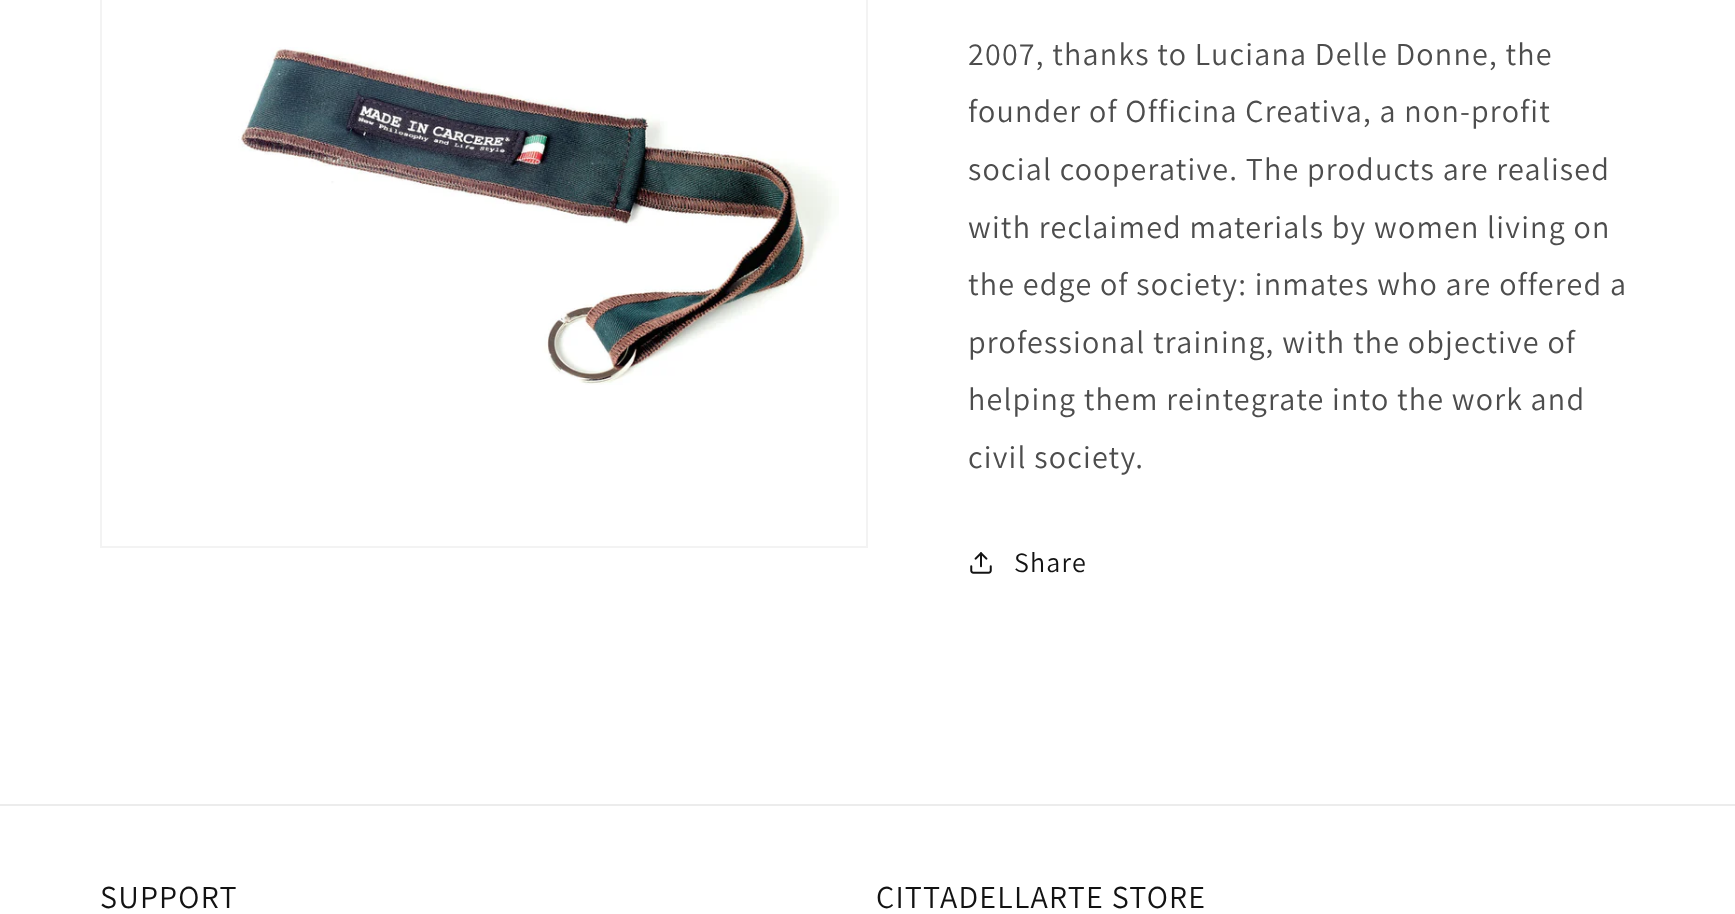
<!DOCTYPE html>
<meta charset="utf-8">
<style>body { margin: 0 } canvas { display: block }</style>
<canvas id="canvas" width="1735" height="914"></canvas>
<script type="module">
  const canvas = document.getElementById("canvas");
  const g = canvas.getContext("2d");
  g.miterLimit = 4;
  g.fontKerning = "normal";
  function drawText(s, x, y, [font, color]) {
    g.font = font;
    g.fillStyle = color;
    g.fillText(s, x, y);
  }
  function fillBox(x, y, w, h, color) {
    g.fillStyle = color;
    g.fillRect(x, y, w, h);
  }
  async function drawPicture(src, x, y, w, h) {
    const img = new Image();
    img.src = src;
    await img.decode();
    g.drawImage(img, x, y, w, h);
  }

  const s1 = ["32px Assistant", "#4D4D4D"];
  const s2 = ["28px Assistant", "#121212"];
  const s3 = ["32px Assistant", "#121212"];

  fillBox(0, 0, 1735, 914, "#FFFFFF");
  g.strokeStyle = "#F3F3F3";
  g.lineWidth = 2;
  g.strokeRect(101, -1, 766, 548);
  await drawPicture("pic1.png", 238, 47, 601, 338);
  g.letterSpacing = "1.2px";
  drawText("2007, thanks to Luciana Delle Donne, the", 968, 65, s1);
  drawText("founder of Officina Creativa, a non-profit", 968, 122, s1);
  drawText("social cooperative. The products are realised", 968, 180, s1);
  drawText("with reclaimed materials by women living on", 968, 238, s1);
  drawText("the edge of society: inmates who are offered a", 968, 295, s1);
  drawText("professional training, with the objective of", 968, 353, s1);
  drawText("helping them reintegrate into the work and", 968, 410, s1);
  drawText("civil society.", 968, 468, s1);
  await drawPicture("pic2.png", 970, 552, 22, 22);
  drawText("Share", 1014, 572, s2);
  fillBox(0, 804, 1735, 2, "#ECECEC");
  drawText("SUPPORT", 100, 908, s3);
  drawText("CITTADELLARTE STORE", 876, 908, s3);
</script>
